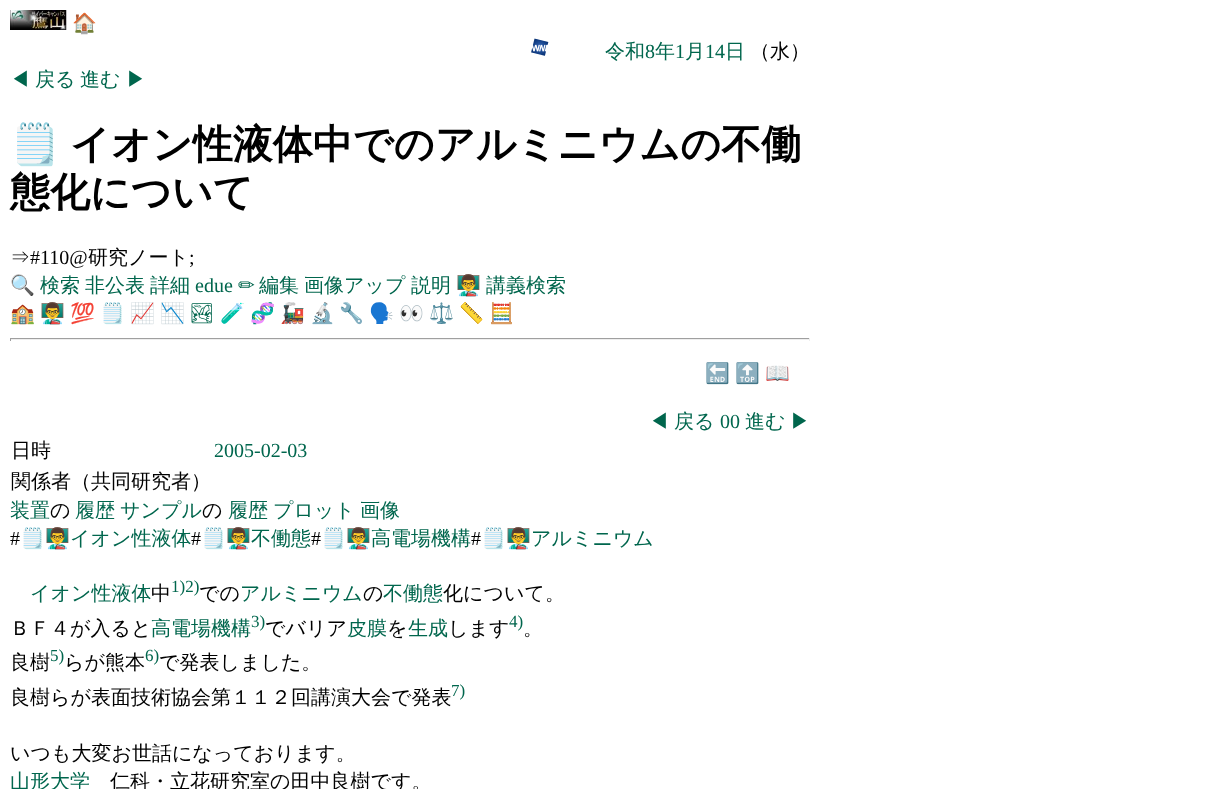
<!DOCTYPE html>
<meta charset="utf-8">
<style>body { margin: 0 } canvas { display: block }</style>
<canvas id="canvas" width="1229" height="789"></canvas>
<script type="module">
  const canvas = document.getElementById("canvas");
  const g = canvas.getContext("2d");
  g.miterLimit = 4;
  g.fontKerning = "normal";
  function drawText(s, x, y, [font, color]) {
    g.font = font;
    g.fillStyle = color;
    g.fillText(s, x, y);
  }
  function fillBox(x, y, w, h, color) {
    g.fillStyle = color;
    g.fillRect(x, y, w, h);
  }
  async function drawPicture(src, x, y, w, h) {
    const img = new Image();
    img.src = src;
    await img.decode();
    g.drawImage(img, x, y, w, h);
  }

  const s1 = ["20px Noto Color Emoji", "#00664D"];
  const s2 = ["500 20px WenQuanYi Zen Hei", "#00664D"];
  const s3 = ["20px Liberation Serif", "#00664D"];
  const s4 = ["500 20px WenQuanYi Zen Hei", "#000000"];
  const s5 = ["bold 40px Noto Color Emoji", "#00664D"];
  const s6 = ["bold 40px WenQuanYi Zen Hei", "#000000"];
  const s7 = ["20px Liberation Serif", "#000000"];
  const s8 = ["20px DejaVu Sans", "#00664D"];
  const s9 = ["20px Noto Emoji", "#00664D"];
  const s10 = ["17px Liberation Serif", "#00664D"];

  fillBox(0, 0, 1229, 789, "#FFFFFF");
  await drawPicture("pic1.png", 10, 10, 57, 20);
  drawText("🏠", 72, 30, s1);
  await drawPicture("pic2.png", 531, 38, 18, 18);
  drawText("令和", 605, 58, s2);
  drawText("8", 645, 58, s3);
  drawText("年", 655, 58, s2);
  drawText("1", 675, 58, s3);
  drawText("月", 685, 58, s2);
  drawText("14", 705, 58, s3);
  drawText("日", 725, 58, s2);
  drawText("（水）", 750, 58, s4);
  drawText("◀", 10, 86, s2);
  drawText("戻る", 35, 86, s2);
  drawText("進む", 80, 86, s2);
  drawText("▶", 126, 86, s2);
  drawText("🗒️", 10, 158, s5);
  drawText("イオン性液体中でのアルミニウムの不働", 70, 158, s6);
  drawText("態化について", 10, 206, s6);
  drawText("⇒", 10, 264, s4);
  drawText("#110@", 30, 264, s7);
  drawText("研究ノート", 88, 264, s4);
  drawText(";", 189, 264, s7);
  drawText("🔍", 10, 292, s1);
  drawText("検索", 40, 292, s2);
  drawText("非公表", 85, 292, s2);
  drawText("詳細", 150, 292, s2);
  drawText("edue", 195, 292, s3);
  drawText("✏", 238, 292, s8);
  drawText("編集", 259, 292, s2);
  drawText("画像アップ", 304, 292, s2);
  drawText("説明", 411, 292, s2);
  drawText("👨‍🏫", 456, 292, s1);
  drawText("講義検索", 486, 292, s2);
  drawText("🏫", 10, 320, s1);
  drawText("👨‍🏫", 40, 320, s1);
  drawText("💯", 70, 320, s1);
  drawText("🗒️", 100, 320, s1);
  drawText("📈", 130, 320, s1);
  drawText("📉", 160, 320, s1);
  drawText("🏞", 189, 320, s9);
  drawText("🧪", 220, 320, s1);
  drawText("🧬", 250, 320, s1);
  drawText("🚂", 280, 320, s1);
  drawText("🔬", 310, 320, s1);
  drawText("🔧", 339, 320, s1);
  drawText("🗣️", 369, 320, s1);
  drawText("👀", 399, 320, s1);
  drawText("⚖️", 429, 320, s1);
  drawText("📏", 459, 320, s1);
  drawText("🧮", 489, 320, s1);
  fillBox(10, 338, 800, 1, "#9F9F9F");
  fillBox(809, 338, 1, 3, "#EEEEEE");
  fillBox(10, 339, 800, 1, "#EEEEEE");
  fillBox(10, 338, 1, 3, "#9F9F9F");
  drawText("🔚", 705, 380, s1);
  drawText("🔝", 735, 380, s1);
  drawText("📖", 765, 380, s1);
  drawText("◀", 649, 428, s2);
  drawText("戻る", 674, 428, s2);
  drawText("00", 720, 428, s3);
  drawText("進む", 745, 428, s2);
  drawText("▶", 790, 428, s2);
  drawText("日時", 11, 457, s4);
  drawText("2005-02-03", 214, 457, s3);
  drawText("関係者（共同研究者）", 11, 488, s4);
  drawText("装置", 10, 517, s2);
  drawText("の", 50, 517, s4);
  drawText("履歴", 75, 517, s2);
  drawText("サンプル", 120, 517, s2);
  drawText("の", 202, 517, s4);
  drawText("履歴", 228, 517, s2);
  drawText("プロット", 273, 517, s2);
  drawText("画像", 360, 517, s2);
  drawText("#", 10, 545, s7);
  drawText("🗒️👨‍🏫", 20, 545, s1);
  drawText("イオン性液体", 70, 545, s2);
  drawText("#", 191, 545, s7);
  drawText("🗒️👨‍🏫", 201, 545, s1);
  drawText("不働態", 251, 545, s2);
  drawText("#", 311, 545, s7);
  drawText("🗒️👨‍🏫", 321, 545, s1);
  drawText("高電場機構", 371, 545, s2);
  drawText("#", 471, 545, s7);
  drawText("🗒️👨‍🏫", 481, 545, s1);
  drawText("アルミニウム", 531, 545, s2);
  drawText("イオン性液体", 30, 600, s2);
  drawText("中", 151, 600, s4);
  drawText("1)2)", 171, 592, s10);
  drawText("での", 199, 600, s4);
  drawText("アルミニウム", 240, 600, s2);
  drawText("の", 363, 600, s4);
  drawText("不働態", 383, 600, s2);
  drawText("化について。", 443, 600, s4);
  drawText("ＢＦ４が入ると", 10, 635, s4);
  drawText("高電場機構", 151, 635, s2);
  drawText("3)", 251, 627, s10);
  drawText("でバリア", 265, 635, s4);
  drawText("皮膜", 347, 635, s2);
  drawText("を", 387, 635, s4);
  drawText("生成", 408, 635, s2);
  drawText("します", 448, 635, s4);
  drawText("4)", 509, 627, s10);
  drawText("。", 523, 635, s4);
  drawText("良樹", 10, 669, s4);
  drawText("5)", 50, 661, s10);
  drawText("らが熊本", 64, 669, s4);
  drawText("6)", 145, 661, s10);
  drawText("で発表しました。", 159, 669, s4);
  drawText("良樹らが表面技術協会第１１２回講演大会で発表", 10, 704, s4);
  drawText("7)", 451, 696, s10);
  drawText("いつも大変お世話になっております。", 10, 760, s4);
  drawText("山形大学", 10, 788, s2);
  drawText("仁科・立花研究室の田中良樹です。", 110, 788, s4);
</script>
